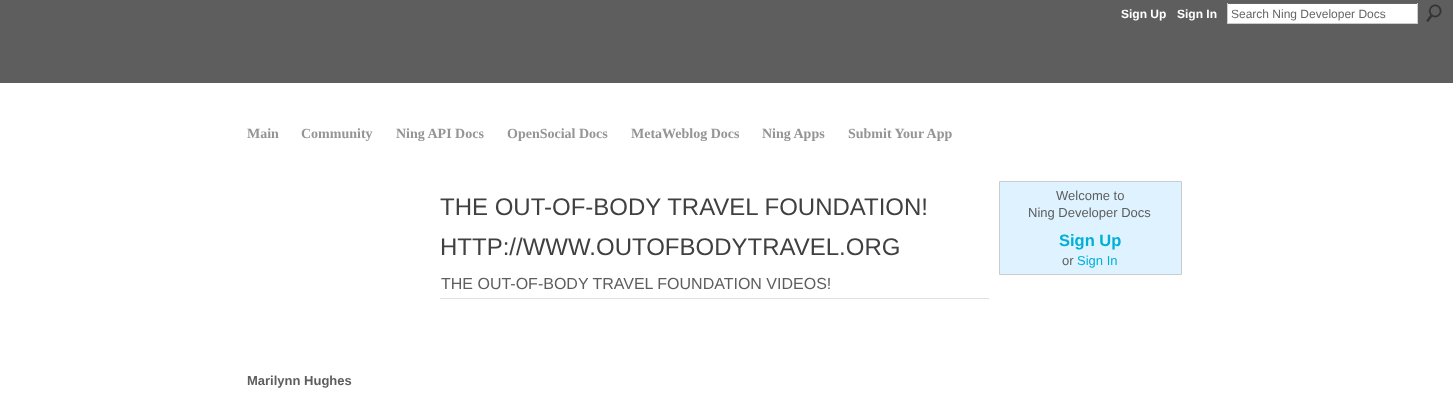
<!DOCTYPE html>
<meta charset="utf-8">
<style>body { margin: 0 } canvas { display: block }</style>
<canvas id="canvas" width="1453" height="395"></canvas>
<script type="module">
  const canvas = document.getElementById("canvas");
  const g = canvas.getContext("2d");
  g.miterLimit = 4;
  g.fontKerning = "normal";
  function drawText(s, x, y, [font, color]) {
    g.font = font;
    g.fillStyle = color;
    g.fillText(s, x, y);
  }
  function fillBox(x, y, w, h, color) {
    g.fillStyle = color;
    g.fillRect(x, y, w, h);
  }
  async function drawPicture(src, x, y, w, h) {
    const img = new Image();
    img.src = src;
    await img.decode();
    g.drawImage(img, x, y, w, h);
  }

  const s1 = ["bold 12px Liberation Sans", "#FFFFFF"];
  const s2 = ["12px Liberation Sans", "#666666"];
  const s3 = ["bold 14px Liberation Serif", "#959595"];
  const s4 = ["24px Liberation Sans", "#403F41"];
  const s5 = ["16px Liberation Sans", "#5E5E5E"];
  const s6 = ["bold 13px Liberation Sans", "#5E5E5E"];
  const s7 = ["13px Liberation Sans", "#5E5E5E"];
  const s8 = ["bold 16.5px Liberation Sans", "#00B0D8"];
  const s9 = ["13px Liberation Sans", "#00B0D8"];

  fillBox(0, 0, 1453, 395, "#FFFFFF");
  fillBox(0, 0, 1453, 83, "#5E5E5E");
  drawText("Sign Up", 1121, 18, s1);
  drawText("Sign In", 1177, 18, s1);
  fillBox(1228, 4, 189, 19, "#FFFFFF");
  fillBox(1227, 3, 191, 1, "#666666");
  fillBox(1417, 3, 1, 21, "#CCCCCC");
  fillBox(1227, 23, 191, 1, "#CCCCCC");
  fillBox(1227, 3, 1, 21, "#CCCCCC");
  drawText("Search Ning Developer Docs", 1231, 18, s2);
  await drawPicture("pic1.png", 1426, 4, 16, 18);
  drawText("Main", 247, 138, s3);
  drawText("Community", 301, 138, s3);
  drawText("Ning API Docs", 396, 138, s3);
  drawText("OpenSocial Docs", 507, 138, s3);
  drawText("MetaWeblog Docs", 631, 138, s3);
  drawText("Ning Apps", 762, 138, s3);
  drawText("Submit Your App", 848, 138, s3);
  drawText("THE OUT-OF-BODY TRAVEL FOUNDATION!", 440, 215, s4);
  drawText("HTTP://WWW.OUTOFBODYTRAVEL.ORG", 440, 255, s4);
  fillBox(440, 298, 549, 1, "#E1E1E1");
  drawText("THE OUT-OF-BODY TRAVEL FOUNDATION VIDEOS!", 441, 289, s5);
  drawText("Marilynn Hughes", 247, 385, s6);
  g.fillStyle = "#DFF2FF";
  g.beginPath();
  g.rect(999.5, 181.5, 182, 93);
  g.fill();
  g.strokeStyle = "#CCCCCC";
  g.stroke();
  drawText("Welcome to", 1056, 200, s7);
  drawText("Ning Developer Docs", 1028, 217, s7);
  drawText("Sign Up", 1059, 246, s8);
  drawText("or", 1062, 265, s7);
  drawText("Sign In", 1077, 265, s9);
</script>
